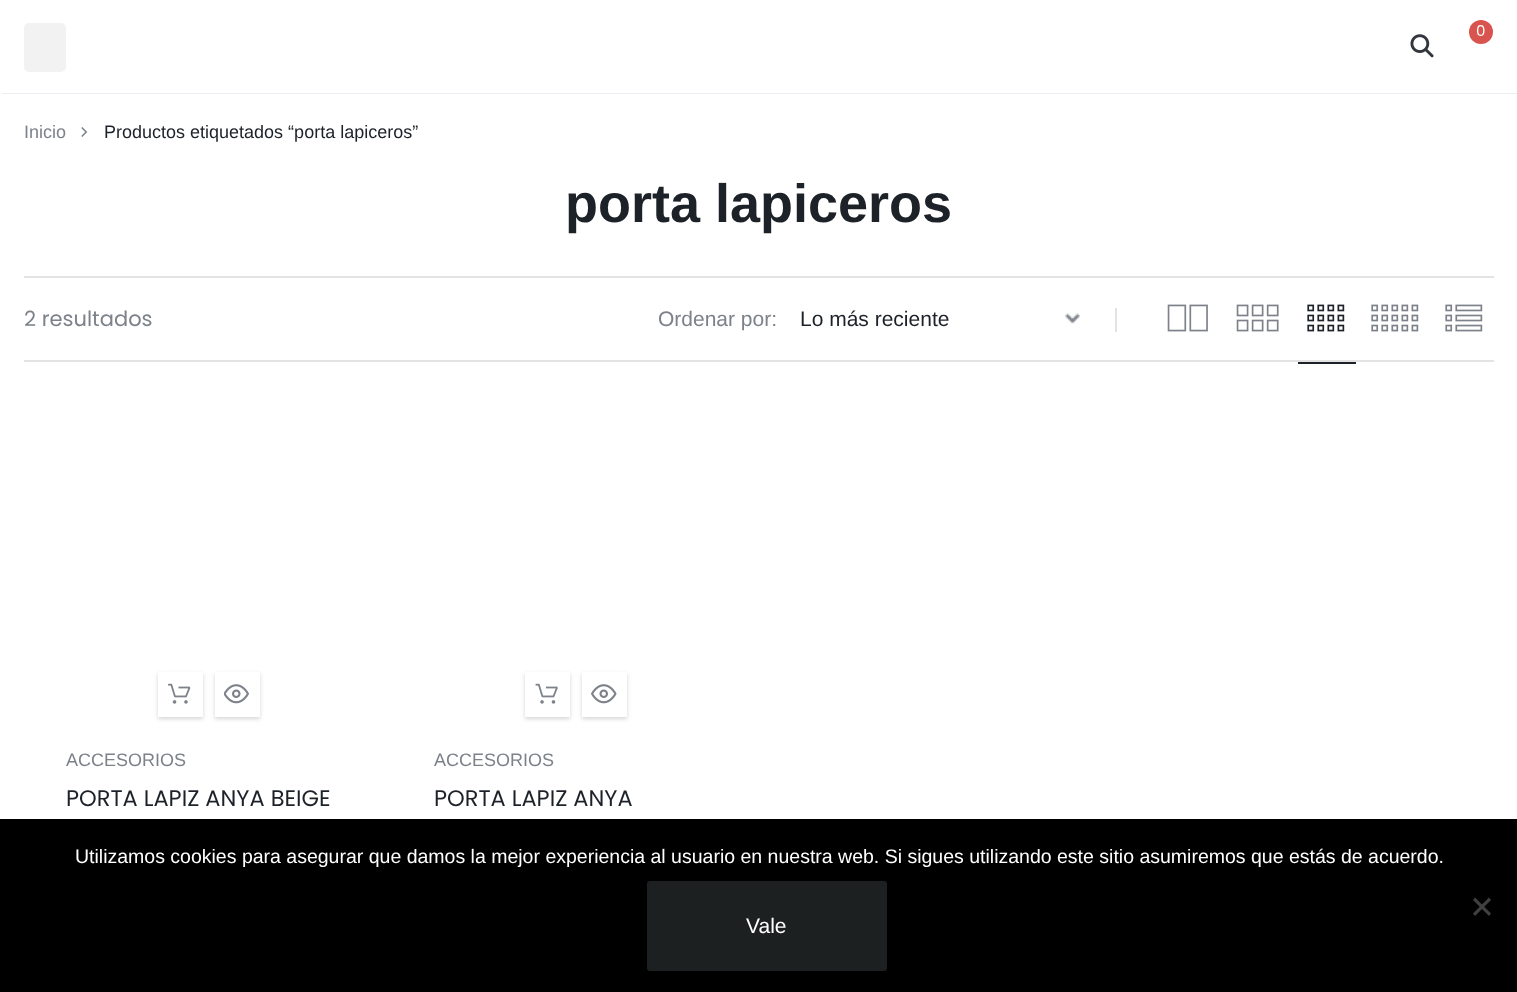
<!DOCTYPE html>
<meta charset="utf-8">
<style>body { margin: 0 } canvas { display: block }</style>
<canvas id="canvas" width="1517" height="992"></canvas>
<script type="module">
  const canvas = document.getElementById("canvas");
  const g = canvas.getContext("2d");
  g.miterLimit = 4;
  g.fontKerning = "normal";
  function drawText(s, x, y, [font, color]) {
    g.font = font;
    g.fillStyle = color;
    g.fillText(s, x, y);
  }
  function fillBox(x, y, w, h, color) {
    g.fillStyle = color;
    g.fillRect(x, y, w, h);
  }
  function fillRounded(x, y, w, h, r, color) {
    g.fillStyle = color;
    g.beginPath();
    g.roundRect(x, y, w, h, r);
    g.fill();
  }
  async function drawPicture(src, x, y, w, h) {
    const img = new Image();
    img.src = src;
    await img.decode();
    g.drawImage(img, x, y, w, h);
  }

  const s1 = ["15px Poppins", "#FFFFFF"];
  const s2 = ["18px Liberation Sans", "#7D828A"];
  const s3 = ["18px Liberation Sans", "#1D2128"];
  const s4 = ["bold 54px Liberation Sans", "#1D2128"];
  const s5 = ["21px Poppins", "#7D828A"];
  const s6 = ["21px Liberation Sans", "#7D828A"];
  const s7 = ["21px Liberation Sans", "#1D2128"];
  const s8 = ["22.5px Poppins", "#1D2128"];
  const s9 = ["19.5px Liberation Sans", "#FFFFFF"];
  const s10 = ["21px Liberation Sans", "#FFFFFF"];

  fillBox(0, 0, 1517, 992, "#FFFFFF");
  fillRounded(24, 23, 42, 49, 5, "#F2F2F2");
  g.fillStyle = "#D9534F";
  g.beginPath();
  g.arc(1481, 32, 12, 0, Math.PI * 2);
  g.fill();
  drawText("0", 1476, 36, s1);
  await drawPicture("pic1.png", 1410, 34, 24, 24);
  fillBox(2, 93, 1515, 1, "#EBEFF3");
  drawText("Inicio", 24, 138, s2);
  await drawPicture("pic2.png", 81, 127, 7, 10);
  drawText("Productos etiquetados “porta lapiceros”", 104, 138, s3);
  drawText("porta lapiceros", 565, 222, s4);
  fillBox(24, 276, 1470, 2, "#E3E3E3");
  fillBox(24, 360, 1470, 2, "#E3E3E3");
  drawText("2 resultados", 24, 326, s5);
  drawText("Ordenar por:", 658, 326, s6);
  await drawPicture("pic3.png", 1065, 313, 15, 11);
  drawText("Lo más reciente", 800, 326, s7);
  fillBox(1115, 308, 2, 24, "#E3E3E3");
  await drawPicture("pic4.png", 1167, 304, 41, 28);
  await drawPicture("pic5.png", 1236, 304, 43, 28);
  await drawPicture("pic6.png", 1307, 304, 38, 28);
  fillBox(1298, 362, 58, 2, "#1D2128");
  await drawPicture("pic7.png", 1371, 304, 48, 28);
  await drawPicture("pic8.png", 1445, 304, 38, 28);
  g.fillStyle = "rgba(0, 0, 0, 0.16)";
  g.filter = "blur(2px)";
  g.beginPath();
  g.rect(158, 674, 45, 45);
  g.fill();
  g.filter = "none";
  fillBox(158, 672, 45, 45, "#FFFFFF");
  await drawPicture("pic9.png", 168, 683, 23, 21);
  g.fillStyle = "rgba(0, 0, 0, 0.16)";
  g.filter = "blur(2px)";
  g.beginPath();
  g.rect(215, 674, 45, 45);
  g.fill();
  g.filter = "none";
  fillBox(215, 672, 45, 45, "#FFFFFF");
  await drawPicture("pic10.png", 224, 684, 25, 20);
  drawText("ACCESORIOS", 66, 766, s2);
  drawText("PORTA LAPIZ ANYA BEIGE", 66, 806, s8);
  g.save();
  g.beginPath();
  g.moveTo(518, 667);
  g.lineTo(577, 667);
  g.lineTo(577, 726);
  g.lineTo(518, 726);
  g.closePath();
  g.moveTo(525, 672);
  g.lineTo(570, 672);
  g.lineTo(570, 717);
  g.lineTo(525, 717);
  g.closePath();
  g.clip("evenodd");
  g.fillStyle = "rgba(0, 0, 0, 0.16)";
  g.filter = "blur(2px)";
  g.beginPath();
  g.rect(525, 674, 45, 45);
  g.fill();
  g.filter = "none";
  g.restore();
  await drawPicture("pic11.png", 535, 683, 23, 21);
  g.save();
  g.beginPath();
  g.moveTo(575, 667);
  g.lineTo(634, 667);
  g.lineTo(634, 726);
  g.lineTo(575, 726);
  g.closePath();
  g.moveTo(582, 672);
  g.lineTo(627, 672);
  g.lineTo(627, 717);
  g.lineTo(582, 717);
  g.closePath();
  g.clip("evenodd");
  g.fillStyle = "rgba(0, 0, 0, 0.16)";
  g.filter = "blur(2px)";
  g.beginPath();
  g.rect(582, 674, 45, 45);
  g.fill();
  g.filter = "none";
  g.restore();
  await drawPicture("pic12.png", 591, 684, 26, 20);
  drawText("ACCESORIOS", 434, 766, s2);
  drawText("PORTA LAPIZ ANYA", 434, 806, s8);
  fillBox(0, 819, 1517, 173, "#000000");
  drawText("Utilizamos cookies para asegurar que damos la mejor experiencia al usuario en nuestra web. Si sigues utilizando este sitio asumiremos que estás de acuerdo.", 75, 863, s9);
  g.fillStyle = "#404040";
  g.beginPath();
  g.moveTo(1489, 897.5);
  g.lineTo(1491, 900);
  g.lineTo(1475, 916);
  g.lineTo(1473, 913.5);
  g.closePath();
  g.fill();
  g.beginPath();
  g.moveTo(1473, 900);
  g.lineTo(1475, 897.5);
  g.lineTo(1491, 913.5);
  g.lineTo(1489, 916);
  g.closePath();
  g.fill();
  fillRounded(647, 881, 240, 90, 3, "#1D2021");
  drawText("Vale", 746, 933, s10);
</script>
